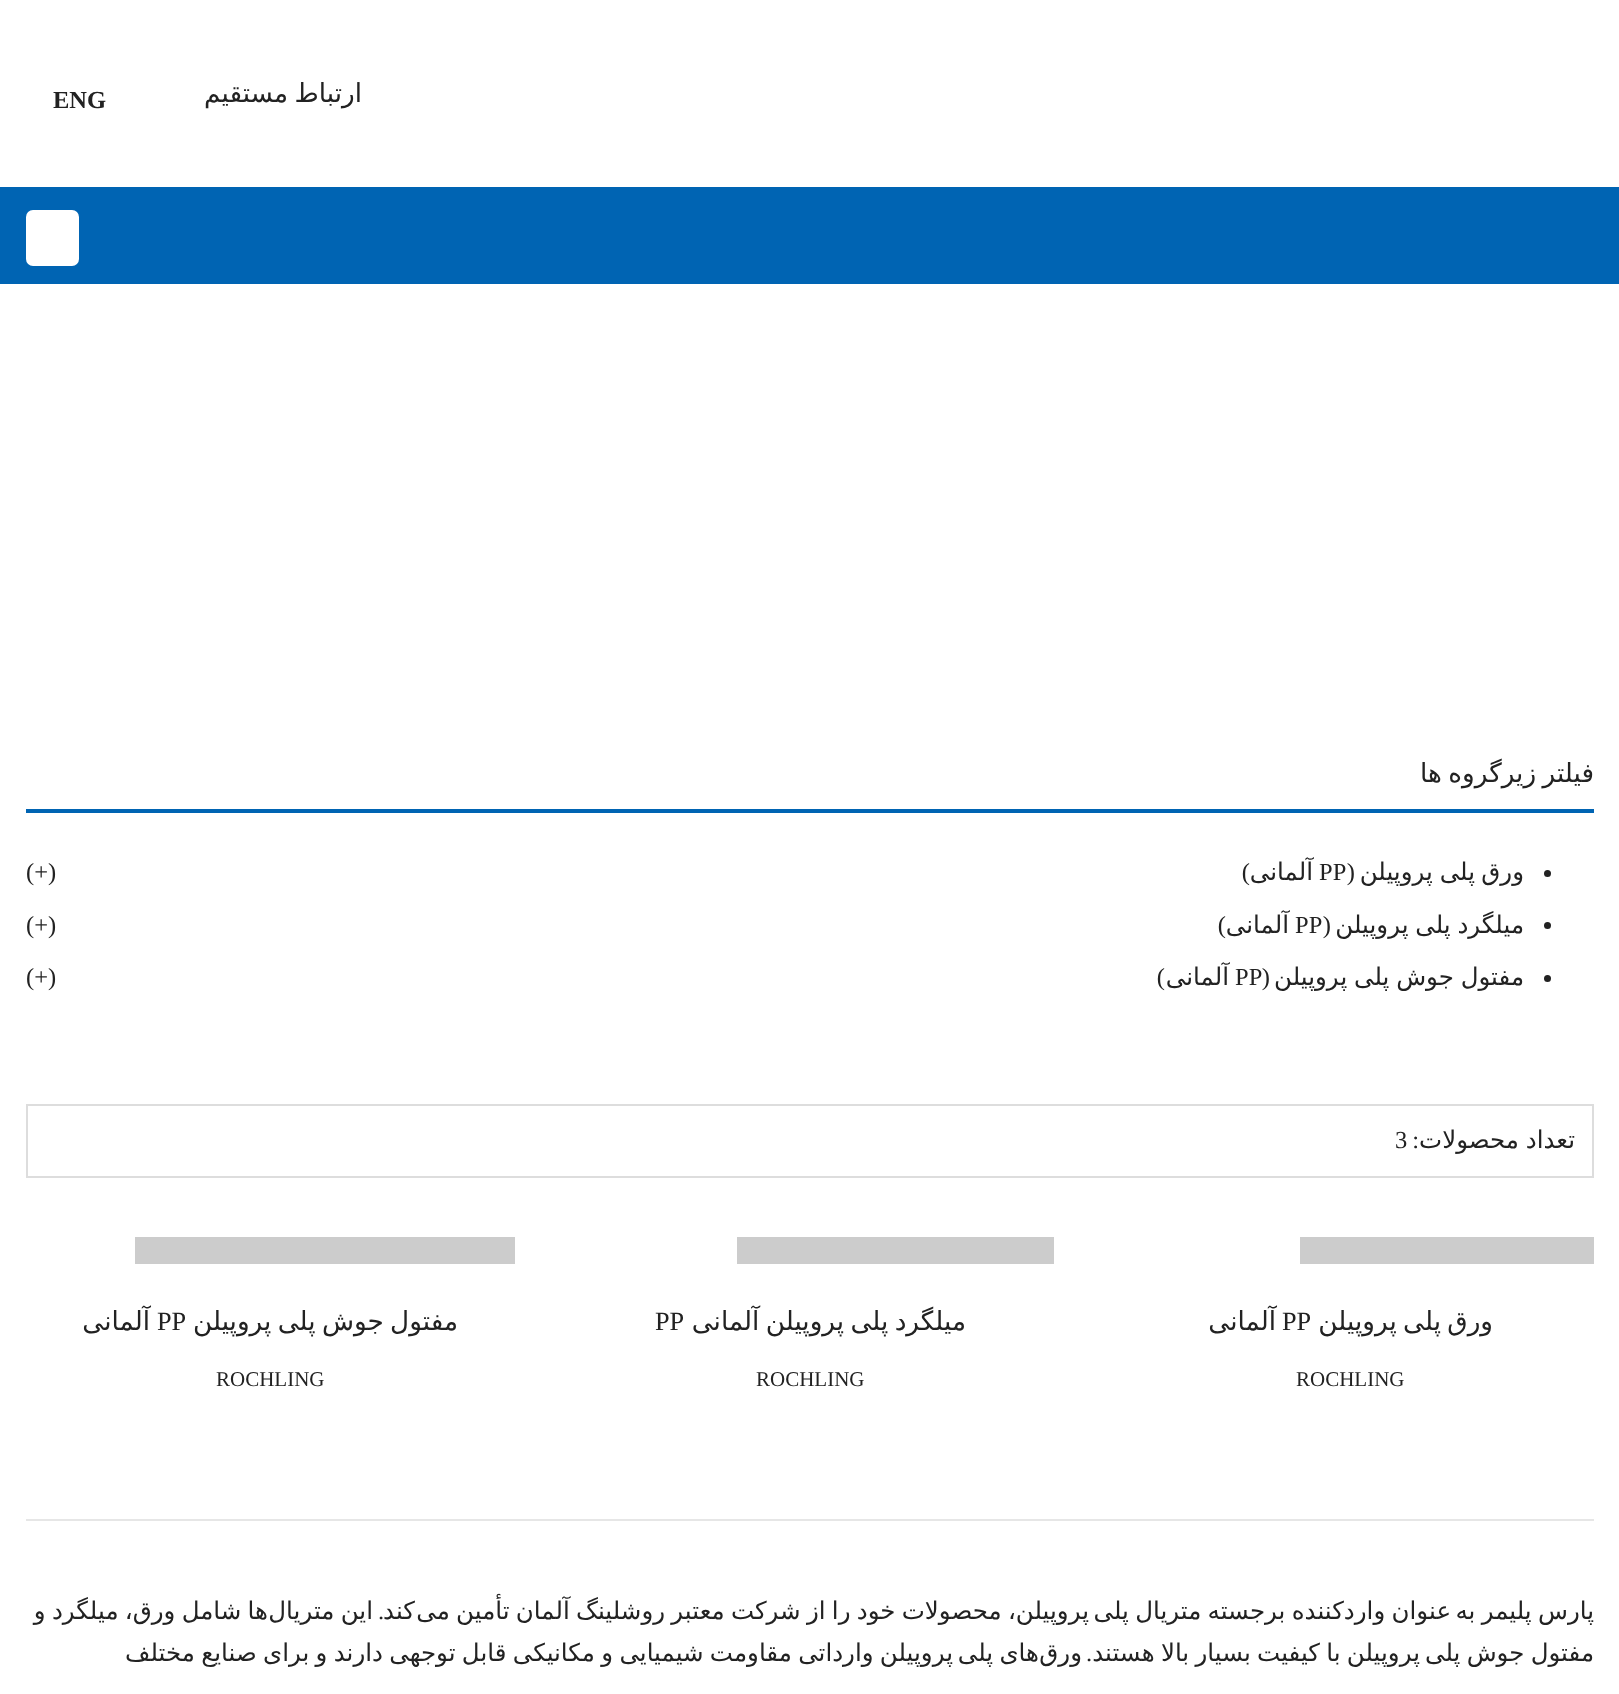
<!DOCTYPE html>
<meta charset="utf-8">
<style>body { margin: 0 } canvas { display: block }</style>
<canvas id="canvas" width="1619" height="1694"></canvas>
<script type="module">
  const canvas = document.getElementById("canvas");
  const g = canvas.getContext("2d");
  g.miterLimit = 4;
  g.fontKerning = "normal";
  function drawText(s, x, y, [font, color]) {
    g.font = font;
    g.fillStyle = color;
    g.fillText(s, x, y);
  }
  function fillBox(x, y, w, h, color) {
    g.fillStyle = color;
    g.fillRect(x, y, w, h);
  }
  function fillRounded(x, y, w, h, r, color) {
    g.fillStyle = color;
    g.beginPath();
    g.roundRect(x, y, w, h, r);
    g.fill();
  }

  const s1 = ["26.25px DejaVu Sans", "#222222"];
  const s2 = ["bold 24.5px Liberation Serif", "#222222"];
  const s3 = ["24.5px DejaVu Sans", "#222222"];
  const s4 = ["24.5px Liberation Serif", "#222222"];
  const s5 = ["26.25px Liberation Serif", "#222222"];
  const s6 = ["21px Liberation Serif", "#222222"];

  fillBox(0, 0, 1619, 1694, "#FFFFFF");
  g.wordSpacing = "-2px";
  g.direction = "rtl";
  drawText("ارتباط مستقیم", 362, 102, s1);
  g.wordSpacing = "0px";
  g.direction = "ltr";
  drawText("ENG", 53, 108, s2);
  fillBox(0, 187, 1619, 97, "#0064B3");
  fillRounded(26, 210, 53, 56, 7, "#FFFFFF");
  fillBox(26, 809, 1568, 4, "#0064B3");
  g.wordSpacing = "-2px";
  g.direction = "rtl";
  drawText("فیلتر زیرگروه ها", 1594, 782, s1);
  g.beginPath();
  g.arc(1547.5, 873.5, 3.5, 0, Math.PI * 2);
  g.fill();
  g.wordSpacing = "0px";
  drawText("ورق", 1524, 880, s3);
  g.wordSpacing = "-1px";
  drawText("پلی پروپیلن", 1475, 880, s3);
  g.wordSpacing = "0px";
  drawText("(", 1355, 880, s4);
  g.direction = "ltr";
  drawText("PP", 1319, 880, s4);
  g.direction = "rtl";
  drawText("آلمانی", 1313, 880, s3);
  drawText(")", 1250, 880, s4);
  g.direction = "ltr";
  drawText("(+)", 26, 880, s4);
  g.beginPath();
  g.arc(1547.5, 925.5, 3.5, 0, Math.PI * 2);
  g.fill();
  g.wordSpacing = "-1px";
  g.direction = "rtl";
  drawText("میلگرد پلی پروپیلن", 1524, 933, s3);
  g.wordSpacing = "0px";
  drawText("(", 1331, 933, s4);
  g.direction = "ltr";
  drawText("PP", 1295, 933, s4);
  g.direction = "rtl";
  drawText("آلمانی", 1289, 933, s3);
  drawText(")", 1226, 933, s4);
  g.direction = "ltr";
  drawText("(+)", 26, 933, s4);
  g.beginPath();
  g.arc(1547.5, 978.5, 3.5, 0, Math.PI * 2);
  g.fill();
  g.wordSpacing = "-1px";
  g.direction = "rtl";
  drawText("مفتول جوش پلی پروپیلن", 1524, 985, s3);
  g.wordSpacing = "0px";
  drawText("(", 1270, 985, s4);
  g.direction = "ltr";
  drawText("PP", 1235, 985, s4);
  g.direction = "rtl";
  drawText("آلمانی", 1229, 985, s3);
  drawText(")", 1165, 985, s4);
  g.direction = "ltr";
  drawText("(+)", 26, 985, s4);
  g.strokeStyle = "#DDDDDD";
  g.lineWidth = 2;
  g.strokeRect(27, 1105, 1566, 72);
  g.wordSpacing = "-1px";
  g.direction = "rtl";
  drawText("تعداد محصولات", 1575, 1148, s3);
  g.wordSpacing = "0px";
  drawText(":", 1419, 1148, s4);
  g.direction = "ltr";
  drawText("3", 1395, 1148, s4);
  fillBox(1300, 1237, 294, 27, "#CCCCCC");
  g.wordSpacing = "-2px";
  g.direction = "rtl";
  drawText("ورق پلی پروپیلن", 1493, 1330, s1);
  g.wordSpacing = "0px";
  g.direction = "ltr";
  drawText("PP", 1282, 1330, s5);
  g.direction = "rtl";
  drawText("آلمانی", 1276, 1330, s1);
  g.direction = "ltr";
  drawText("ROCHLING", 1296, 1386, s6);
  fillBox(737, 1237, 317, 27, "#CCCCCC");
  g.wordSpacing = "-2px";
  g.direction = "rtl";
  drawText("میلگرد پلی پروپیلن آلمانی", 966, 1330, s1);
  g.wordSpacing = "0px";
  g.direction = "ltr";
  drawText("PP", 655, 1330, s5);
  drawText("ROCHLING", 756, 1386, s6);
  fillBox(135, 1237, 380, 27, "#CCCCCC");
  g.wordSpacing = "-2px";
  g.direction = "rtl";
  drawText("مفتول جوش پلی پروپیلن", 458, 1330, s1);
  g.wordSpacing = "0px";
  g.direction = "ltr";
  drawText("PP", 157, 1330, s5);
  g.direction = "rtl";
  drawText("آلمانی", 150, 1330, s1);
  g.direction = "ltr";
  drawText("ROCHLING", 216, 1386, s6);
  fillBox(26, 1519, 1568, 2, "#E6E6E6");
  g.wordSpacing = "-1.5px";
  g.direction = "rtl";
  drawText("پارس پلیمر به", 1594, 1619, s3);
  drawText("پروپیلن، محصولات خود را از شرکت معتبر روشلینگ آلمان تأمین می", 1089, 1619, s3);
  drawText("عنوان واردکننده برجسته متریال پلی", 1451, 1619, s3);
  g.wordSpacing = "0px";
  drawText("کند", 415, 1619, s3);
  drawText(".", 384, 1619, s4);
  g.wordSpacing = "-1.5px";
  drawText("ها شامل ورق، میلگرد و", 268, 1619, s3);
  drawText("این متریال", 373, 1619, s3);
  drawText("پروپیلن با کیفیت بسیار بالا هستند", 1420, 1661, s3);
  drawText("مفتول جوش پلی", 1594, 1661, s3);
  g.wordSpacing = "0px";
  drawText(".", 1092, 1661, s4);
  drawText("ورق", 1082, 1661, s3);
  g.wordSpacing = "-1.5px";
  drawText("پروپیلن وارداتی مقاومت شیمیایی و مکانیکی قابل توجهی دارند و برای صنایع مختلف", 953, 1661, s3);
  drawText("های پلی", 1039, 1661, s3);
</script>
